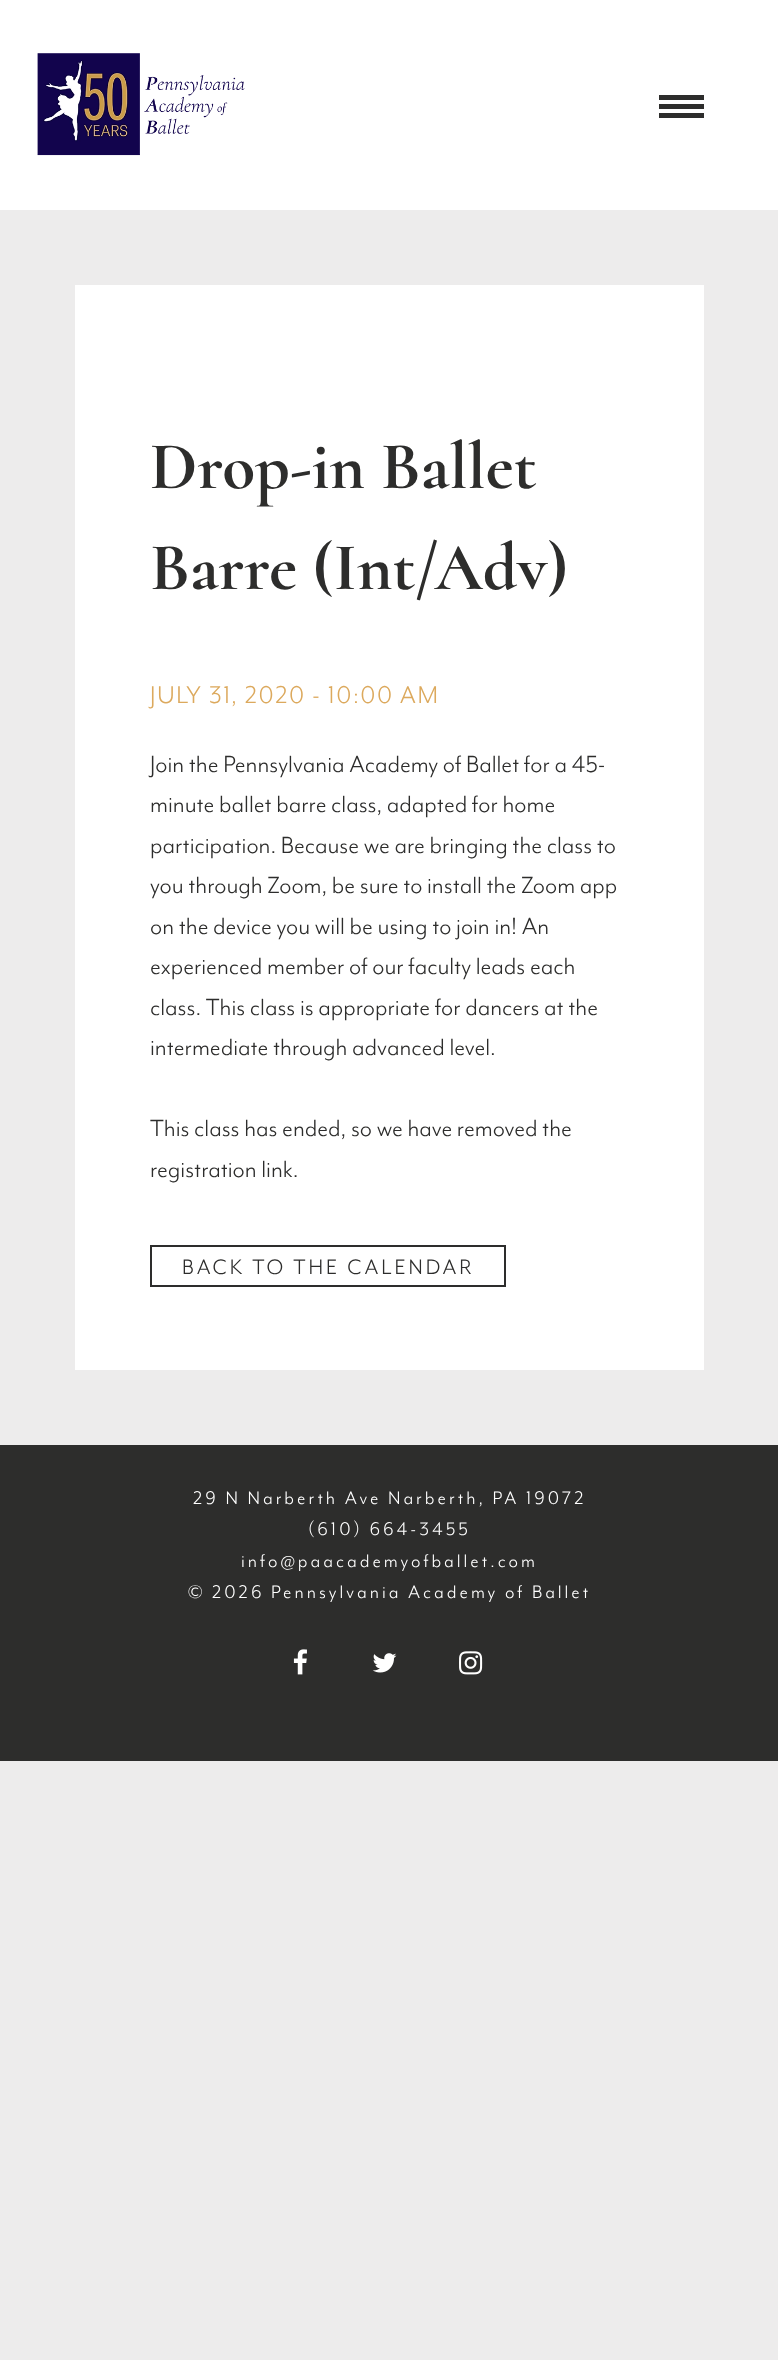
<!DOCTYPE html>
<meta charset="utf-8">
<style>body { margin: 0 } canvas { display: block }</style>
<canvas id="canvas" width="778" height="2360"></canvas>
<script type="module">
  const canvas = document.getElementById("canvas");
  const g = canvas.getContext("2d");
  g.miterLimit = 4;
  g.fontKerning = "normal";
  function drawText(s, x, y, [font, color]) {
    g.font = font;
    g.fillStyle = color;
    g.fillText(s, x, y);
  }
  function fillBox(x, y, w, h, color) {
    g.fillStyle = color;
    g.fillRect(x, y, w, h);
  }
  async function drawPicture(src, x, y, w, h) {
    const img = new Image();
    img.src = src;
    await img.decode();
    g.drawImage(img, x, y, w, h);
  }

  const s1 = ["bold 67.5px Cormorant", "#2D2D2C"];
  const s2 = ["28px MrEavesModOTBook", "#DCA95D"];
  const s3 = ["27px MrEavesModOTBook", "#2D2D2C"];
  const s4 = ["24px MrEavesModOTBook", "#2D2D2C"];
  const s5 = ["21px MrEavesModOTBook", "#FFFFFF"];

  fillBox(0, 0, 778, 2360, "#EDECEC");
  fillBox(0, 0, 778, 210, "#FFFFFF");
  await drawPicture("pic1.png", 37, 53, 208, 103);
  fillBox(659, 95, 45, 5, "#2D2D2C");
  fillBox(659, 104, 45, 5, "#2D2D2C");
  fillBox(659, 113, 45, 5, "#2D2D2C");
  fillBox(75, 285, 629, 1085, "#FFFFFF");
  drawText("Drop-in Ballet", 150, 488, s1);
  drawText("Barre (Int/Adv)", 150, 589, s1);
  g.letterSpacing = "1.5px";
  drawText("JULY 31, 2020 - 10:00 AM", 150, 703, s2);
  g.letterSpacing = "0px";
  drawText("Join the Pennsylvania Academy of Ballet for a 45-", 150, 772, s3);
  drawText("minute ballet barre class, adapted for home", 150, 812, s3);
  drawText("participation. Because we are bringing the class to", 150, 853, s3);
  drawText("you through Zoom, be sure to install the Zoom app", 150, 893, s3);
  drawText("on the device you will be using to join in! An", 150, 934, s3);
  drawText("experienced member of our faculty leads each", 150, 974, s3);
  drawText("class. This class is appropriate for dancers at the", 150, 1015, s3);
  drawText("intermediate through advanced level.", 150, 1055, s3);
  drawText("This class has ended, so we have removed the", 150, 1136, s3);
  drawText("registration link.", 150, 1177, s3);
  g.strokeStyle = "#2D2D2C";
  g.lineWidth = 2;
  g.strokeRect(151, 1246, 354, 40);
  g.letterSpacing = "3px";
  drawText("BACK TO THE CALENDAR", 182, 1274, s4);
  fillBox(0, 1445, 778, 316, "#2D2D2C");
  drawText("29 N Narberth Ave Narberth, PA 19072", 193, 1504, s5);
  drawText("(610) 664-3455", 308, 1535, s5);
  drawText("info@paacademyofballet.com", 241, 1567, s5);
  drawText("© 2026 Pennsylvania Academy of Ballet", 188, 1598, s5);
  await drawPicture("pic2.png", 293, 1649, 14, 26);
  await drawPicture("pic3.png", 372, 1653, 25, 20);
  await drawPicture("pic4.png", 459, 1651, 24, 24);
</script>
